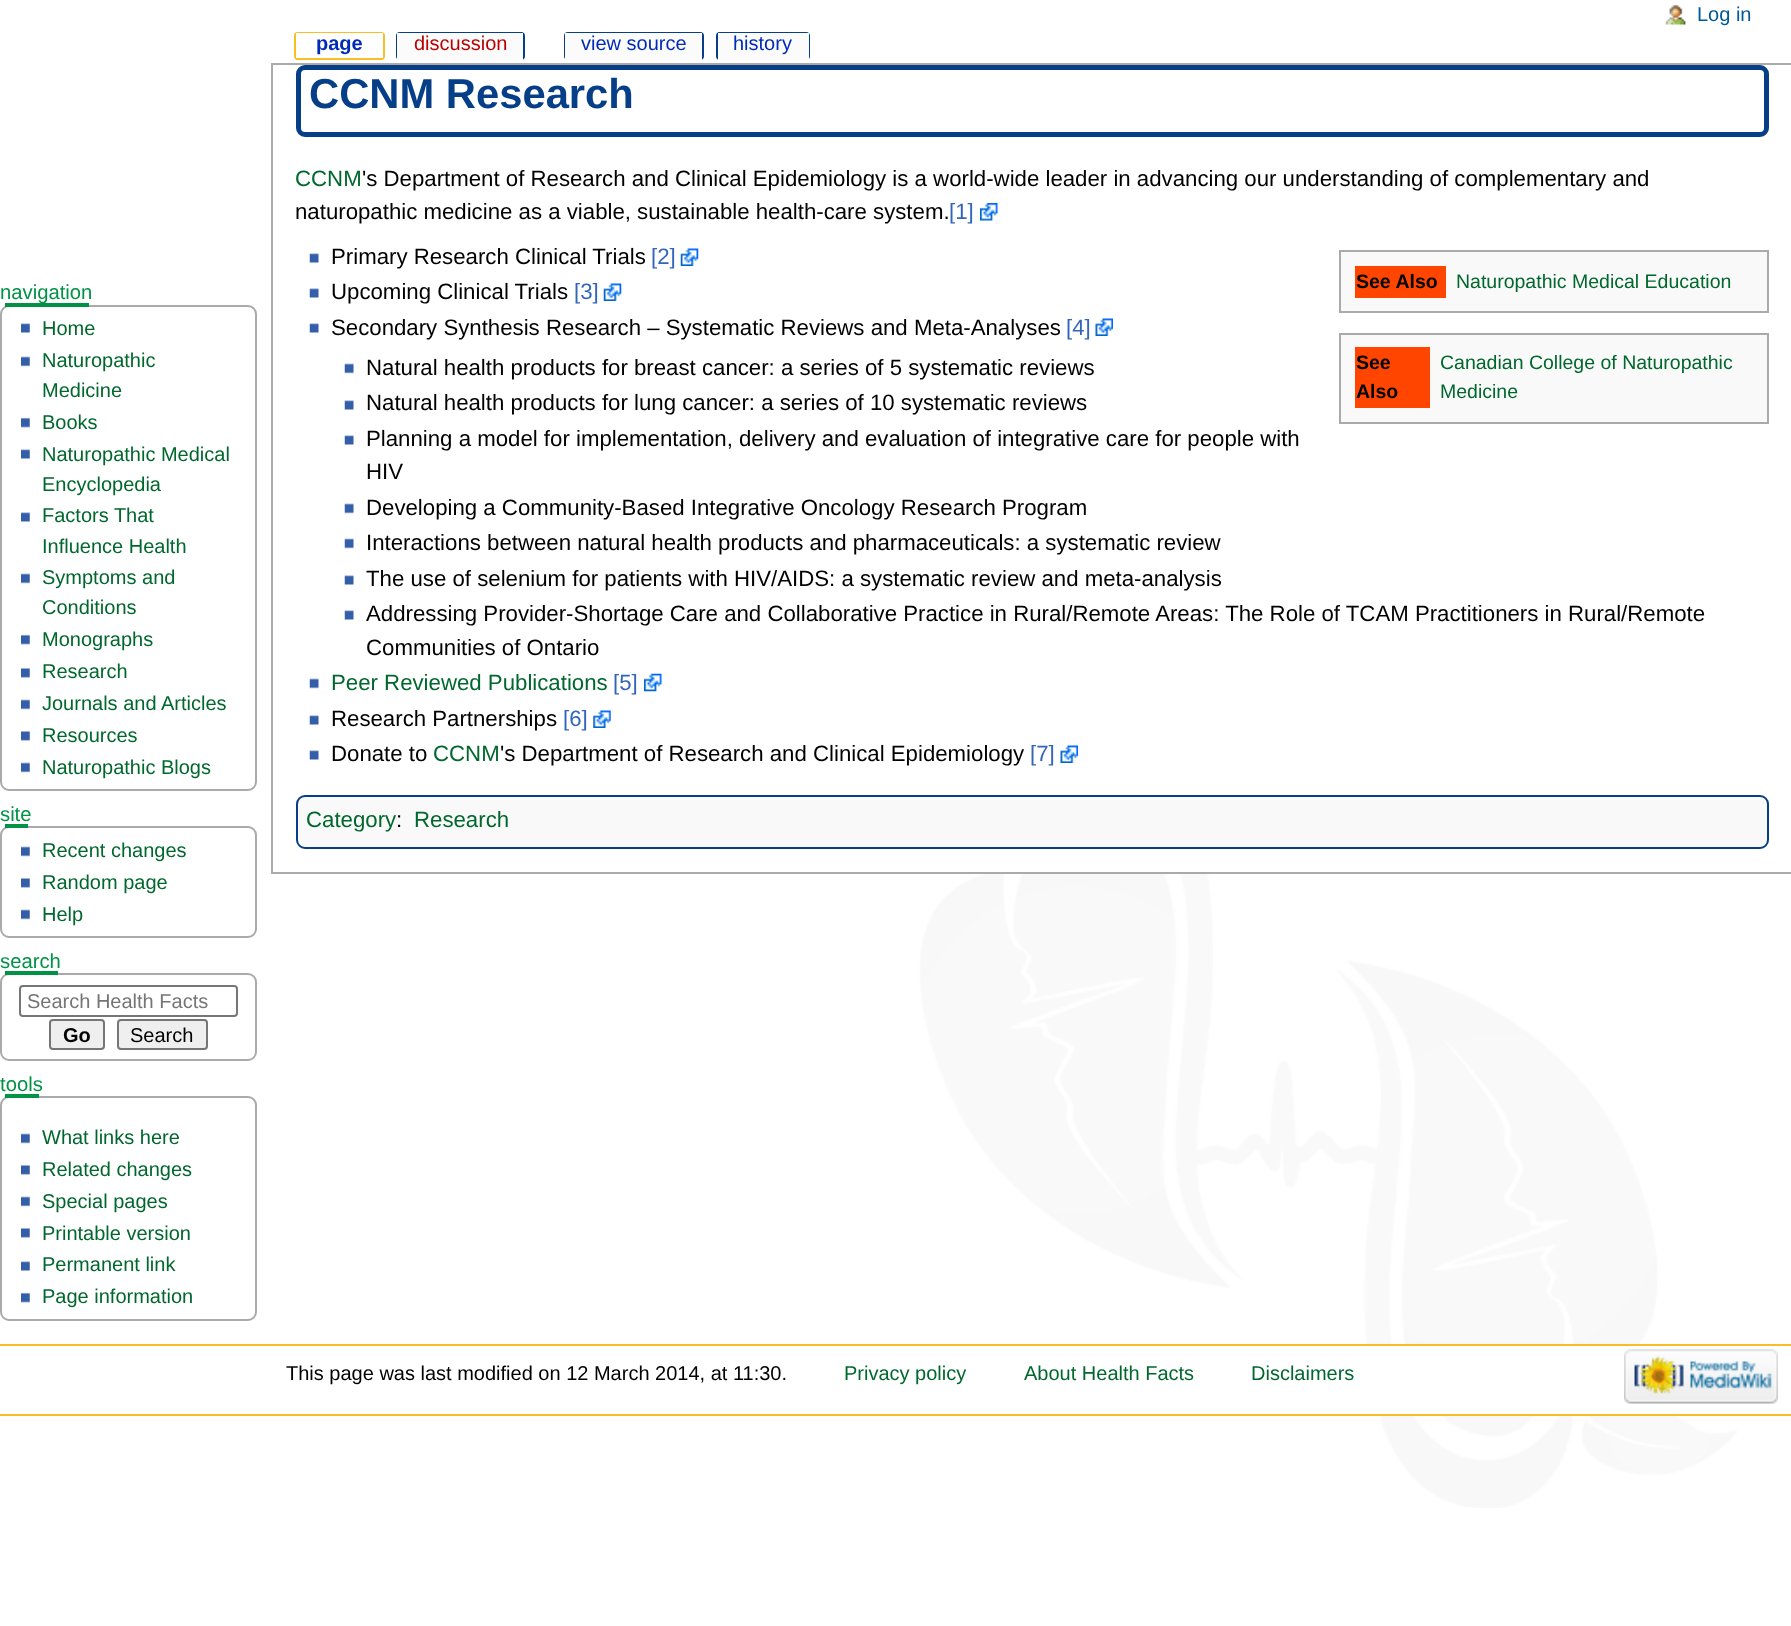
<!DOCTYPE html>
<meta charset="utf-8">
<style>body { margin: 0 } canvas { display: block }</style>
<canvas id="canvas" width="1791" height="1626"></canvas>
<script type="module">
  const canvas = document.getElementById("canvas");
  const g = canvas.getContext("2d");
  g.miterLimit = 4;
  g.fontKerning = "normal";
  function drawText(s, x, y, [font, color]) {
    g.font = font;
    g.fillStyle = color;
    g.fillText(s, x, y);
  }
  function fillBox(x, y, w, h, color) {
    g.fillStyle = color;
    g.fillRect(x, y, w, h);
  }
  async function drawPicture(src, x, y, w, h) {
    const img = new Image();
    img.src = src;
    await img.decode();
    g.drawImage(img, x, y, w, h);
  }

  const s1 = ["20px Liberation Sans", "#005896"];
  const s2 = ["bold 20px Liberation Sans", "#002BB8"];
  const s3 = ["20px Liberation Sans", "#BA0000"];
  const s4 = ["20px Liberation Sans", "#002BB8"];
  const s5 = ["20.25px Liberation Sans", "#009245"];
  const s6 = ["20px Liberation Sans", "#00672D"];
  const s7 = ["20px Liberation Sans", "#757575"];
  const s8 = ["bold 20px Liberation Sans", "#000000"];
  const s9 = ["20px Liberation Sans", "#000000"];
  const s10 = ["bold 41.75px Liberation Sans", "#063F88"];
  const s11 = ["22.22px Liberation Sans", "#00672D"];
  const s12 = ["22.22px Liberation Sans", "#000000"];
  const s13 = ["22.22px Liberation Sans", "#3366BB"];
  const s14 = ["bold 19.5px Liberation Sans", "#000000"];
  const s15 = ["19.5px Liberation Sans", "#00672D"];

  fillBox(0, 0, 1791, 1626, "#FFFFFF");
  await drawPicture("pic1.png", 841, 874, 896, 634);
  await drawPicture("pic2.png", 1665, 4, 21, 21);
  drawText("Log in", 1697, 21, s1);
  g.beginPath();
  g.roundRect(295, 33, 89, 26, 3);
  g.strokeStyle = "#FABD23";
  g.lineWidth = 2;
  g.stroke();
  fillBox(296, 33, 87, 25, "#FFFFFF");
  drawText("page", 316, 50, s2);
  g.beginPath();
  g.roundRect(397, 33, 127, 26, 3);
  g.strokeStyle = "#063F88";
  g.stroke();
  fillBox(397, 33, 126, 27, "#FBFBFB");
  drawText("discussion", 414, 50, s3);
  g.beginPath();
  g.roundRect(565, 33, 138, 26, 3);
  g.stroke();
  fillBox(565, 33, 137, 27, "#FBFBFB");
  drawText("view source", 581, 50, s4);
  g.beginPath();
  g.roundRect(717, 33, 92, 26, 3);
  g.stroke();
  fillBox(718, 33, 91, 27, "#FBFBFB");
  drawText("history", 733, 50, s4);
  g.beginPath();
  g.roundRect(1, 306, 255, 484, 8);
  g.strokeStyle = "#AAAAAA";
  g.stroke();
  fillBox(5, 303, 84, 4, "#009245");
  drawText("navigation", 0, 299, s5);
  await drawPicture("pic3.png", 21, 323, 9, 10);
  drawText("Home", 42, 335, s6);
  await drawPicture("pic4.png", 21, 356, 9, 11);
  drawText("Naturopathic", 42, 367, s6);
  drawText("Medicine", 42, 397, s6);
  await drawPicture("pic5.png", 21, 417, 9, 11);
  drawText("Books", 42, 429, s6);
  await drawPicture("pic3.png", 21, 449, 9, 10);
  drawText("Naturopathic Medical", 42, 461, s6);
  drawText("Encyclopedia", 42, 491, s6);
  await drawPicture("pic3.png", 21, 512, 9, 10);
  drawText("Factors That", 42, 522, s6);
  drawText("Influence Health", 42, 553, s6);
  await drawPicture("pic4.png", 21, 573, 9, 11);
  drawText("Symptoms and", 42, 584, s6);
  drawText("Conditions", 42, 614, s6);
  await drawPicture("pic5.png", 21, 634, 9, 11);
  drawText("Monographs", 42, 646, s6);
  await drawPicture("pic6.png", 21, 668, 9, 10);
  drawText("Research", 42, 678, s6);
  await drawPicture("pic4.png", 21, 699, 9, 11);
  drawText("Journals and Articles", 42, 710, s6);
  await drawPicture("pic6.png", 21, 731, 9, 10);
  drawText("Resources", 42, 742, s6);
  await drawPicture("pic4.png", 21, 762, 9, 11);
  drawText("Naturopathic Blogs", 42, 774, s6);
  drawText("site", 0, 821, s5);
  g.beginPath();
  g.roundRect(1, 827, 255, 110, 8);
  g.stroke();
  fillBox(5, 824, 23, 4, "#009245");
  await drawPicture("pic4.png", 21, 846, 9, 11);
  drawText("Recent changes", 42, 857, s6);
  await drawPicture("pic6.png", 21, 878, 9, 10);
  drawText("Random page", 42, 889, s6);
  await drawPicture("pic4.png", 21, 909, 9, 11);
  drawText("Help", 42, 921, s6);
  drawText("search", 0, 968, s5);
  g.beginPath();
  g.roundRect(1, 974, 255, 86, 8);
  g.stroke();
  fillBox(5, 971, 53, 4, "#009245");
  g.beginPath();
  g.roundRect(20, 986, 217, 30, 3);
  g.strokeStyle = "#767676";
  g.stroke();
  drawText("Search Health Facts", 27, 1008, s7);
  g.fillStyle = "#EFEFEF";
  g.beginPath();
  g.roundRect(50, 1020, 54, 29, 3);
  g.fill();
  g.stroke();
  drawText("Go", 63, 1042, s8);
  g.fillStyle = "#EFEFEF";
  g.beginPath();
  g.roundRect(118, 1020, 89, 29, 3);
  g.fill();
  g.stroke();
  drawText("Search", 130, 1042, s9);
  drawText("tools", 0, 1091, s5);
  g.beginPath();
  g.roundRect(1, 1097, 255, 223, 8);
  g.strokeStyle = "#AAAAAA";
  g.stroke();
  fillBox(5, 1094, 34, 4, "#009245");
  await drawPicture("pic4.png", 21, 1133, 9, 11);
  drawText("What links here", 42, 1144, s6);
  await drawPicture("pic6.png", 21, 1165, 9, 10);
  drawText("Related changes", 42, 1176, s6);
  await drawPicture("pic4.png", 21, 1196, 9, 11);
  drawText("Special pages", 42, 1208, s6);
  await drawPicture("pic6.png", 21, 1228, 9, 10);
  drawText("Printable version", 42, 1240, s6);
  await drawPicture("pic3.png", 21, 1261, 9, 10);
  drawText("Permanent link", 42, 1271, s6);
  await drawPicture("pic5.png", 21, 1292, 9, 11);
  drawText("Page information", 42, 1303, s6);
  fillBox(271, 63, 1520, 2, "#AAAAAA");
  fillBox(271, 872, 1520, 2, "#AAAAAA");
  fillBox(271, 63, 2, 810, "#AAAAAA");
  g.beginPath();
  g.roundRect(298.5, 67.5, 1468, 67, 6.5);
  g.strokeStyle = "#063F88";
  g.lineWidth = 5;
  g.stroke();
  drawText("CCNM Research", 309, 108, s10);
  drawText("CCNM", 295, 186, s11);
  drawText("'s Department of Research and Clinical Epidemiology is a world-wide leader in advancing our understanding of complementary and", 362, 186, s12);
  drawText("naturopathic medicine as a viable, sustainable health-care system.", 295, 219, s12);
  drawText("[1]", 949, 219, s13);
  await drawPicture("pic7.png", 980, 203, 18, 18);
  await drawPicture("pic8.png", 309, 253, 10, 10);
  drawText("Primary Research Clinical Trials", 331, 264, s12);
  drawText("[2]", 651, 264, s13);
  await drawPicture("pic9.png", 680, 248, 19, 18);
  await drawPicture("pic8.png", 309, 288, 10, 10);
  drawText("Upcoming Clinical Trials", 331, 299, s12);
  drawText("[3]", 574, 299, s13);
  await drawPicture("pic9.png", 603, 283, 19, 18);
  await drawPicture("pic8.png", 309, 323, 10, 10);
  drawText("Secondary Synthesis Research – Systematic Reviews and Meta-Analyses", 331, 335, s12);
  drawText("[4]", 1066, 335, s13);
  await drawPicture("pic10.png", 1095, 318, 18, 18);
  await drawPicture("pic11.png", 344, 363, 10, 11);
  drawText("Natural health products for breast cancer: a series of 5 systematic reviews", 366, 375, s12);
  await drawPicture("pic8.png", 344, 400, 10, 10);
  drawText("Natural health products for lung cancer: a series of 10 systematic reviews", 366, 410, s12);
  await drawPicture("pic8.png", 344, 435, 10, 10);
  drawText("Planning a model for implementation, delivery and evaluation of integrative care for people with", 366, 446, s12);
  drawText("HIV", 366, 479, s12);
  await drawPicture("pic11.png", 344, 503, 10, 11);
  drawText("Developing a Community-Based Integrative Oncology Research Program", 366, 515, s12);
  await drawPicture("pic11.png", 344, 538, 10, 11);
  drawText("Interactions between natural health products and pharmaceuticals: a systematic review", 366, 550, s12);
  await drawPicture("pic8.png", 344, 575, 10, 10);
  drawText("The use of selenium for patients with HIV/AIDS: a systematic review and meta-analysis", 366, 586, s12);
  await drawPicture("pic8.png", 344, 610, 10, 10);
  drawText("Addressing Provider-Shortage Care and Collaborative Practice in Rural/Remote Areas: The Role of TCAM Practitioners in Rural/Remote", 366, 621, s12);
  drawText("Communities of Ontario", 366, 655, s12);
  await drawPicture("pic11.png", 309, 678, 10, 11);
  drawText("Peer Reviewed Publications", 331, 690, s11);
  drawText("[5]", 613, 690, s13);
  await drawPicture("pic12.png", 644, 673, 18, 19);
  await drawPicture("pic8.png", 309, 715, 10, 10);
  drawText("Research Partnerships", 331, 726, s12);
  drawText("[6]", 563, 726, s13);
  await drawPicture("pic13.png", 593, 710, 18, 18);
  await drawPicture("pic8.png", 309, 750, 10, 10);
  drawText("Donate to", 331, 761, s12);
  drawText("CCNM", 433, 761, s11);
  drawText("'s Department of Research and Clinical Epidemiology", 500, 761, s12);
  drawText("[7]", 1030, 761, s13);
  await drawPicture("pic10.png", 1060, 745, 18, 18);
  g.fillStyle = "#F9F9F9";
  g.beginPath();
  g.rect(1340, 251, 428, 61);
  g.fill();
  g.strokeStyle = "#AAAAAA";
  g.lineWidth = 2;
  g.stroke();
  fillBox(1355, 266, 91, 32, "#FF4500");
  drawText("See Also", 1356, 288, s14);
  drawText("Naturopathic Medical Education", 1456, 288, s15);
  g.fillStyle = "#F9F9F9";
  g.beginPath();
  g.rect(1340, 334, 428, 89);
  g.fill();
  g.stroke();
  fillBox(1355, 347, 75, 61, "#FF4500");
  drawText("See", 1356, 369, s14);
  drawText("Also", 1356, 398, s14);
  drawText("Canadian College of Naturopathic", 1440, 369, s15);
  drawText("Medicine", 1440, 398, s15);
  g.fillStyle = "#F9F9F9";
  g.beginPath();
  g.roundRect(297, 796, 1471, 52, 8);
  g.fill();
  g.strokeStyle = "#063F88";
  g.stroke();
  drawText("Category", 306, 827, s11);
  drawText(":", 396, 827, s12);
  drawText("Research", 414, 827, s11);
  fillBox(1367, 1346, 307, 68, "#FFFFFF");
  fillBox(0, 1344, 1791, 2, "#FABD23");
  fillBox(0, 1414, 1791, 2, "#FABD23");
  drawText("This page was last modified on 12 March 2014, at 11:30.", 286, 1380, s9);
  drawText("Privacy policy", 844, 1380, s6);
  drawText("About Health Facts", 1024, 1380, s6);
  drawText("Disclaimers", 1251, 1380, s6);
  await drawPicture("pic14.png", 1624, 1349, 154, 55);
</script>
